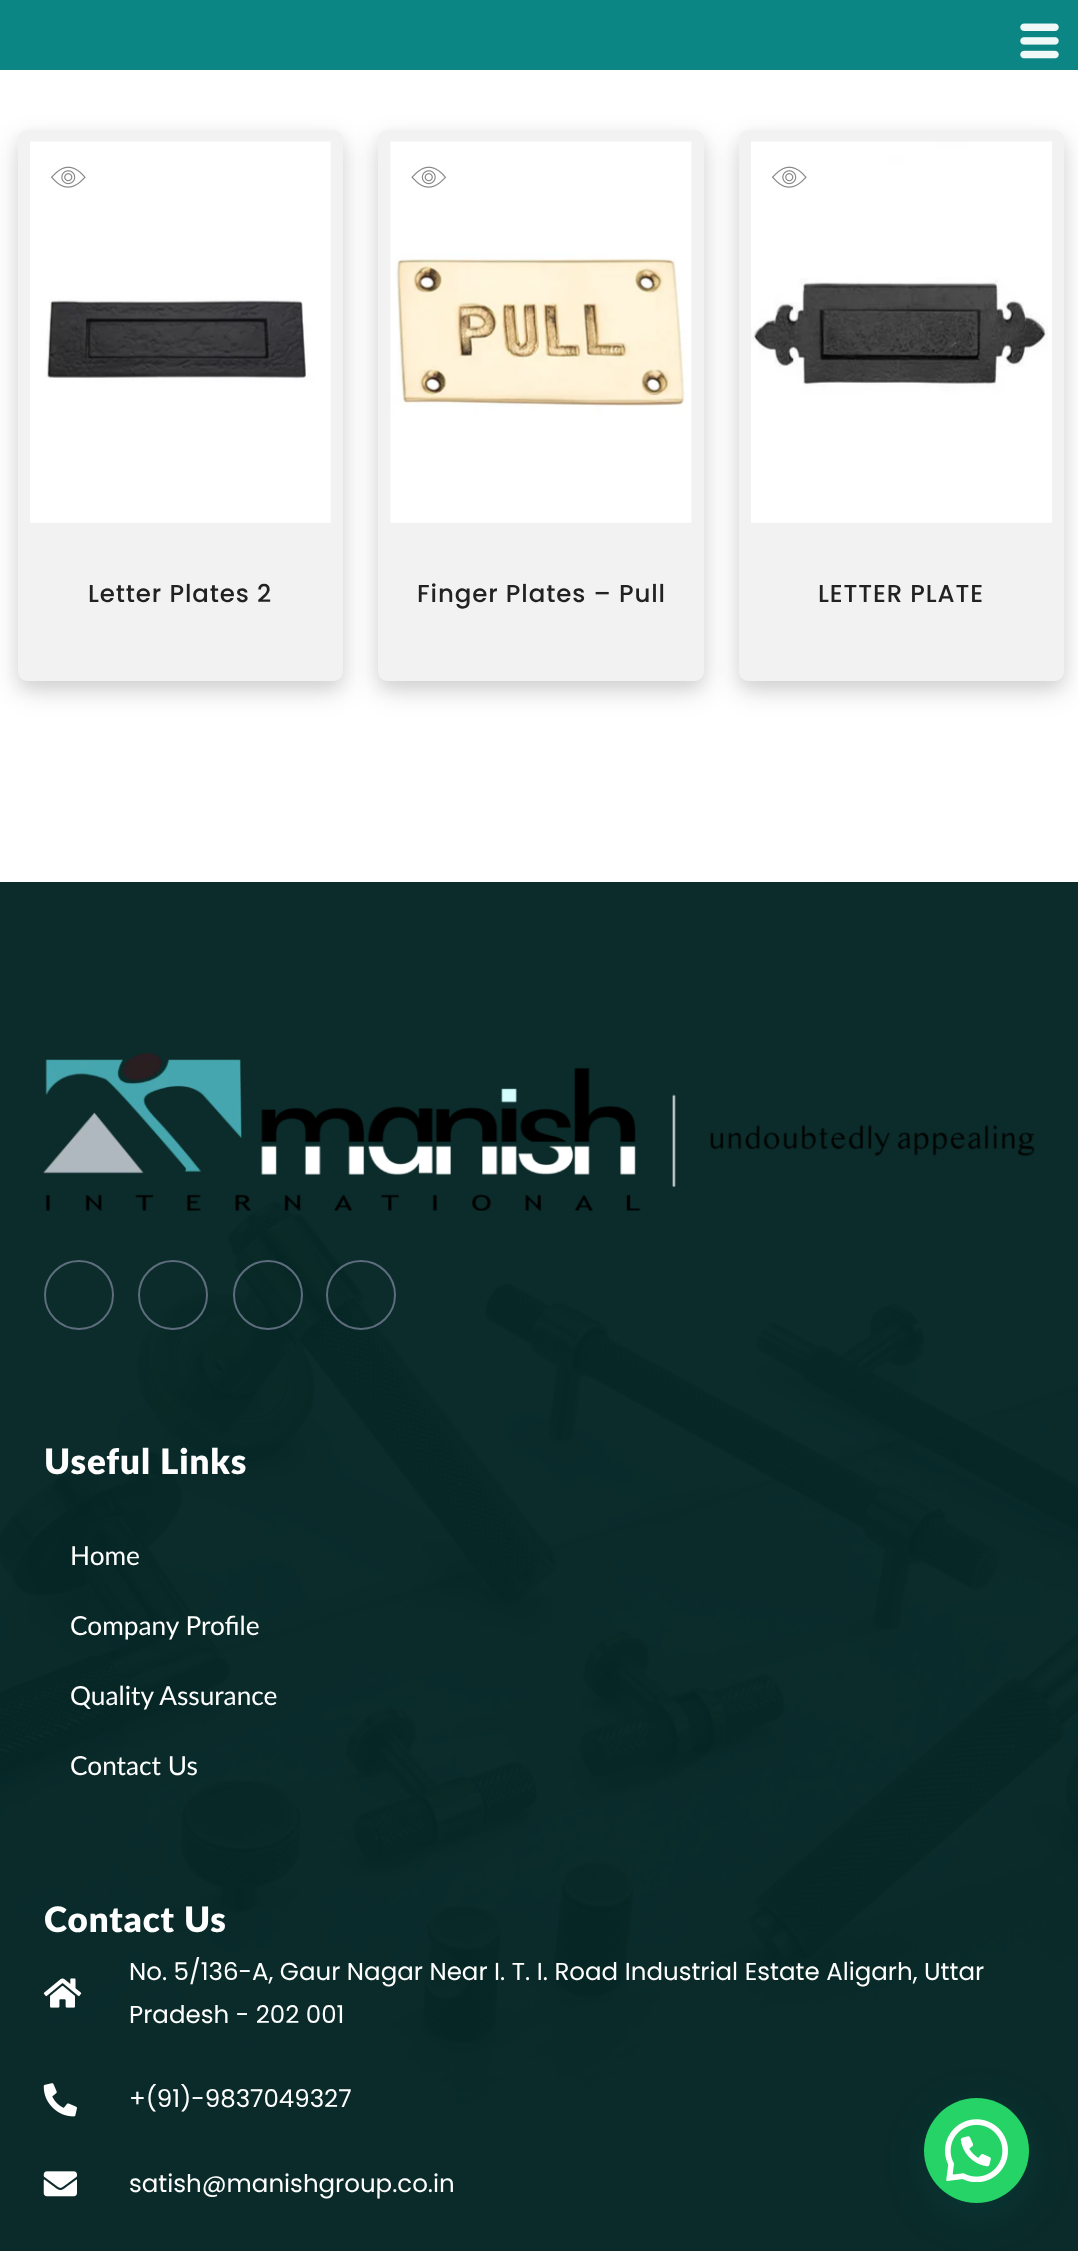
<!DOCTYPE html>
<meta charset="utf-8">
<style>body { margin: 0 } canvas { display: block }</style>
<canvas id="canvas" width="1078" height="2251"></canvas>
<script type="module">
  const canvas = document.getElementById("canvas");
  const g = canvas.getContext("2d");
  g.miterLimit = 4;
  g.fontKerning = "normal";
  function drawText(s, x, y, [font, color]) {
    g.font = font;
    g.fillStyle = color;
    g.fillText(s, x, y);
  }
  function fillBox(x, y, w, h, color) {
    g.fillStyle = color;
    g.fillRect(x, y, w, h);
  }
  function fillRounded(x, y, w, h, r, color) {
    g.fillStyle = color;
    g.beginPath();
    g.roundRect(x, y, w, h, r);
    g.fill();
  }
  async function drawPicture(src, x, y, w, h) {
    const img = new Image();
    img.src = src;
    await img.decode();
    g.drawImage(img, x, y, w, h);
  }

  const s1 = ["500 24.5px Poppins", "#222222"];
  const s2 = ["800 35px Lato", "#FFFFFF"];
  const s3 = ["26.25px Lato", "#FFFFFF"];
  const s4 = ["24.5px Poppins", "#FFFFFF"];

  fillBox(0, 0, 1078, 2251, "#FFFFFF");
  fillBox(0, 0, 1078, 70, "#0C8684");
  await drawPicture("pic1.png", 1020, 23, 39, 36);
  g.fillStyle = "rgba(0, 0, 0, 0.15)";
  g.filter = "blur(13px)";
  g.beginPath();
  g.roundRect(18, 140, 325, 551, 9);
  g.fill();
  g.filter = "none";
  g.fillStyle = "rgba(0, 0, 0, 0.05)";
  g.filter = "blur(7px)";
  g.beginPath();
  g.roundRect(18, 137, 325, 551, 9);
  g.fill();
  g.filter = "none";
  fillRounded(18, 130, 325, 551, 9, "#F2F2F2");
  await drawPicture("pic2.png", 30, 141, 301, 382);
  await drawPicture("pic3.png", 50, 166, 36, 22);
  g.letterSpacing = "0.9px";
  drawText("Letter Plates 2", 88, 602, s1);
  g.fillStyle = "rgba(0, 0, 0, 0.15)";
  g.filter = "blur(13px)";
  g.beginPath();
  g.roundRect(378, 140, 326, 551, 9);
  g.fill();
  g.filter = "none";
  g.fillStyle = "rgba(0, 0, 0, 0.05)";
  g.filter = "blur(7px)";
  g.beginPath();
  g.roundRect(378, 137, 326, 551, 9);
  g.fill();
  g.filter = "none";
  fillRounded(378, 130, 326, 551, 9, "#F2F2F2");
  await drawPicture("pic4.png", 390, 141, 302, 382);
  await drawPicture("pic5.png", 411, 166, 36, 22);
  drawText("Finger Plates – Pull", 417, 602, s1);
  g.fillStyle = "rgba(0, 0, 0, 0.15)";
  g.filter = "blur(13px)";
  g.beginPath();
  g.roundRect(739, 140, 325, 551, 9);
  g.fill();
  g.filter = "none";
  g.fillStyle = "rgba(0, 0, 0, 0.05)";
  g.filter = "blur(7px)";
  g.beginPath();
  g.roundRect(739, 137, 325, 551, 9);
  g.fill();
  g.filter = "none";
  fillRounded(739, 130, 325, 551, 9, "#F2F2F2");
  await drawPicture("pic6.png", 751, 141, 301, 382);
  await drawPicture("pic3.png", 771, 166, 36, 22);
  drawText("LETTER PLATE", 818, 602, s1);
  fillBox(0, 882, 1078, 1369, "#052726");
  await drawPicture("pic7.png", 0, 882, 1078, 1369);
  await drawPicture("pic8.png", 43, 1053, 992, 158);
  g.beginPath();
  g.arc(79, 1295, 34, 0, Math.PI * 2);
  g.strokeStyle = "#5E6D7E";
  g.lineWidth = 2;
  g.stroke();
  g.beginPath();
  g.arc(173, 1295, 34, 0, Math.PI * 2);
  g.stroke();
  g.beginPath();
  g.arc(268, 1295, 34, 0, Math.PI * 2);
  g.stroke();
  g.beginPath();
  g.arc(361, 1295, 34, 0, Math.PI * 2);
  g.stroke();
  drawText("Useful Links", 44, 1474, s2);
  g.letterSpacing = "0px";
  drawText("Home", 70, 1565, s3);
  drawText("Company Profile", 70, 1635, s3);
  drawText("Quality Assurance", 70, 1705, s3);
  drawText("Contact Us", 70, 1775, s3);
  g.letterSpacing = "0.9px";
  drawText("Contact Us", 44, 1932, s2);
  await drawPicture("pic9.png", 43, 1978, 39, 30);
  g.letterSpacing = "0px";
  drawText("No. 5/136-A, Gaur Nagar Near I. T. I. Road Industrial Estate Aligarh, Uttar", 129, 1980, s4);
  drawText("Pradesh - 202 001", 129, 2023, s4);
  await drawPicture("pic10.png", 43, 2083, 34, 34);
  drawText("+(91)-9837049327", 129, 2107, s4);
  await drawPicture("pic11.png", 43, 2171, 34, 26);
  drawText("satish@manishgroup.co.in", 129, 2192, s4);
  g.fillStyle = "rgba(7, 94, 84, 0.24)";
  g.filter = "blur(21px)";
  g.beginPath();
  g.roundRect(926, 2109, 105, 105, 52.5);
  g.fill();
  g.filter = "none";
  g.fillStyle = "#25D366";
  g.beginPath();
  g.arc(976.5, 2150.5, 52.5, 0, Math.PI * 2);
  g.fill();
  await drawPicture("pic12.png", 945, 2119, 63, 63);
</script>
